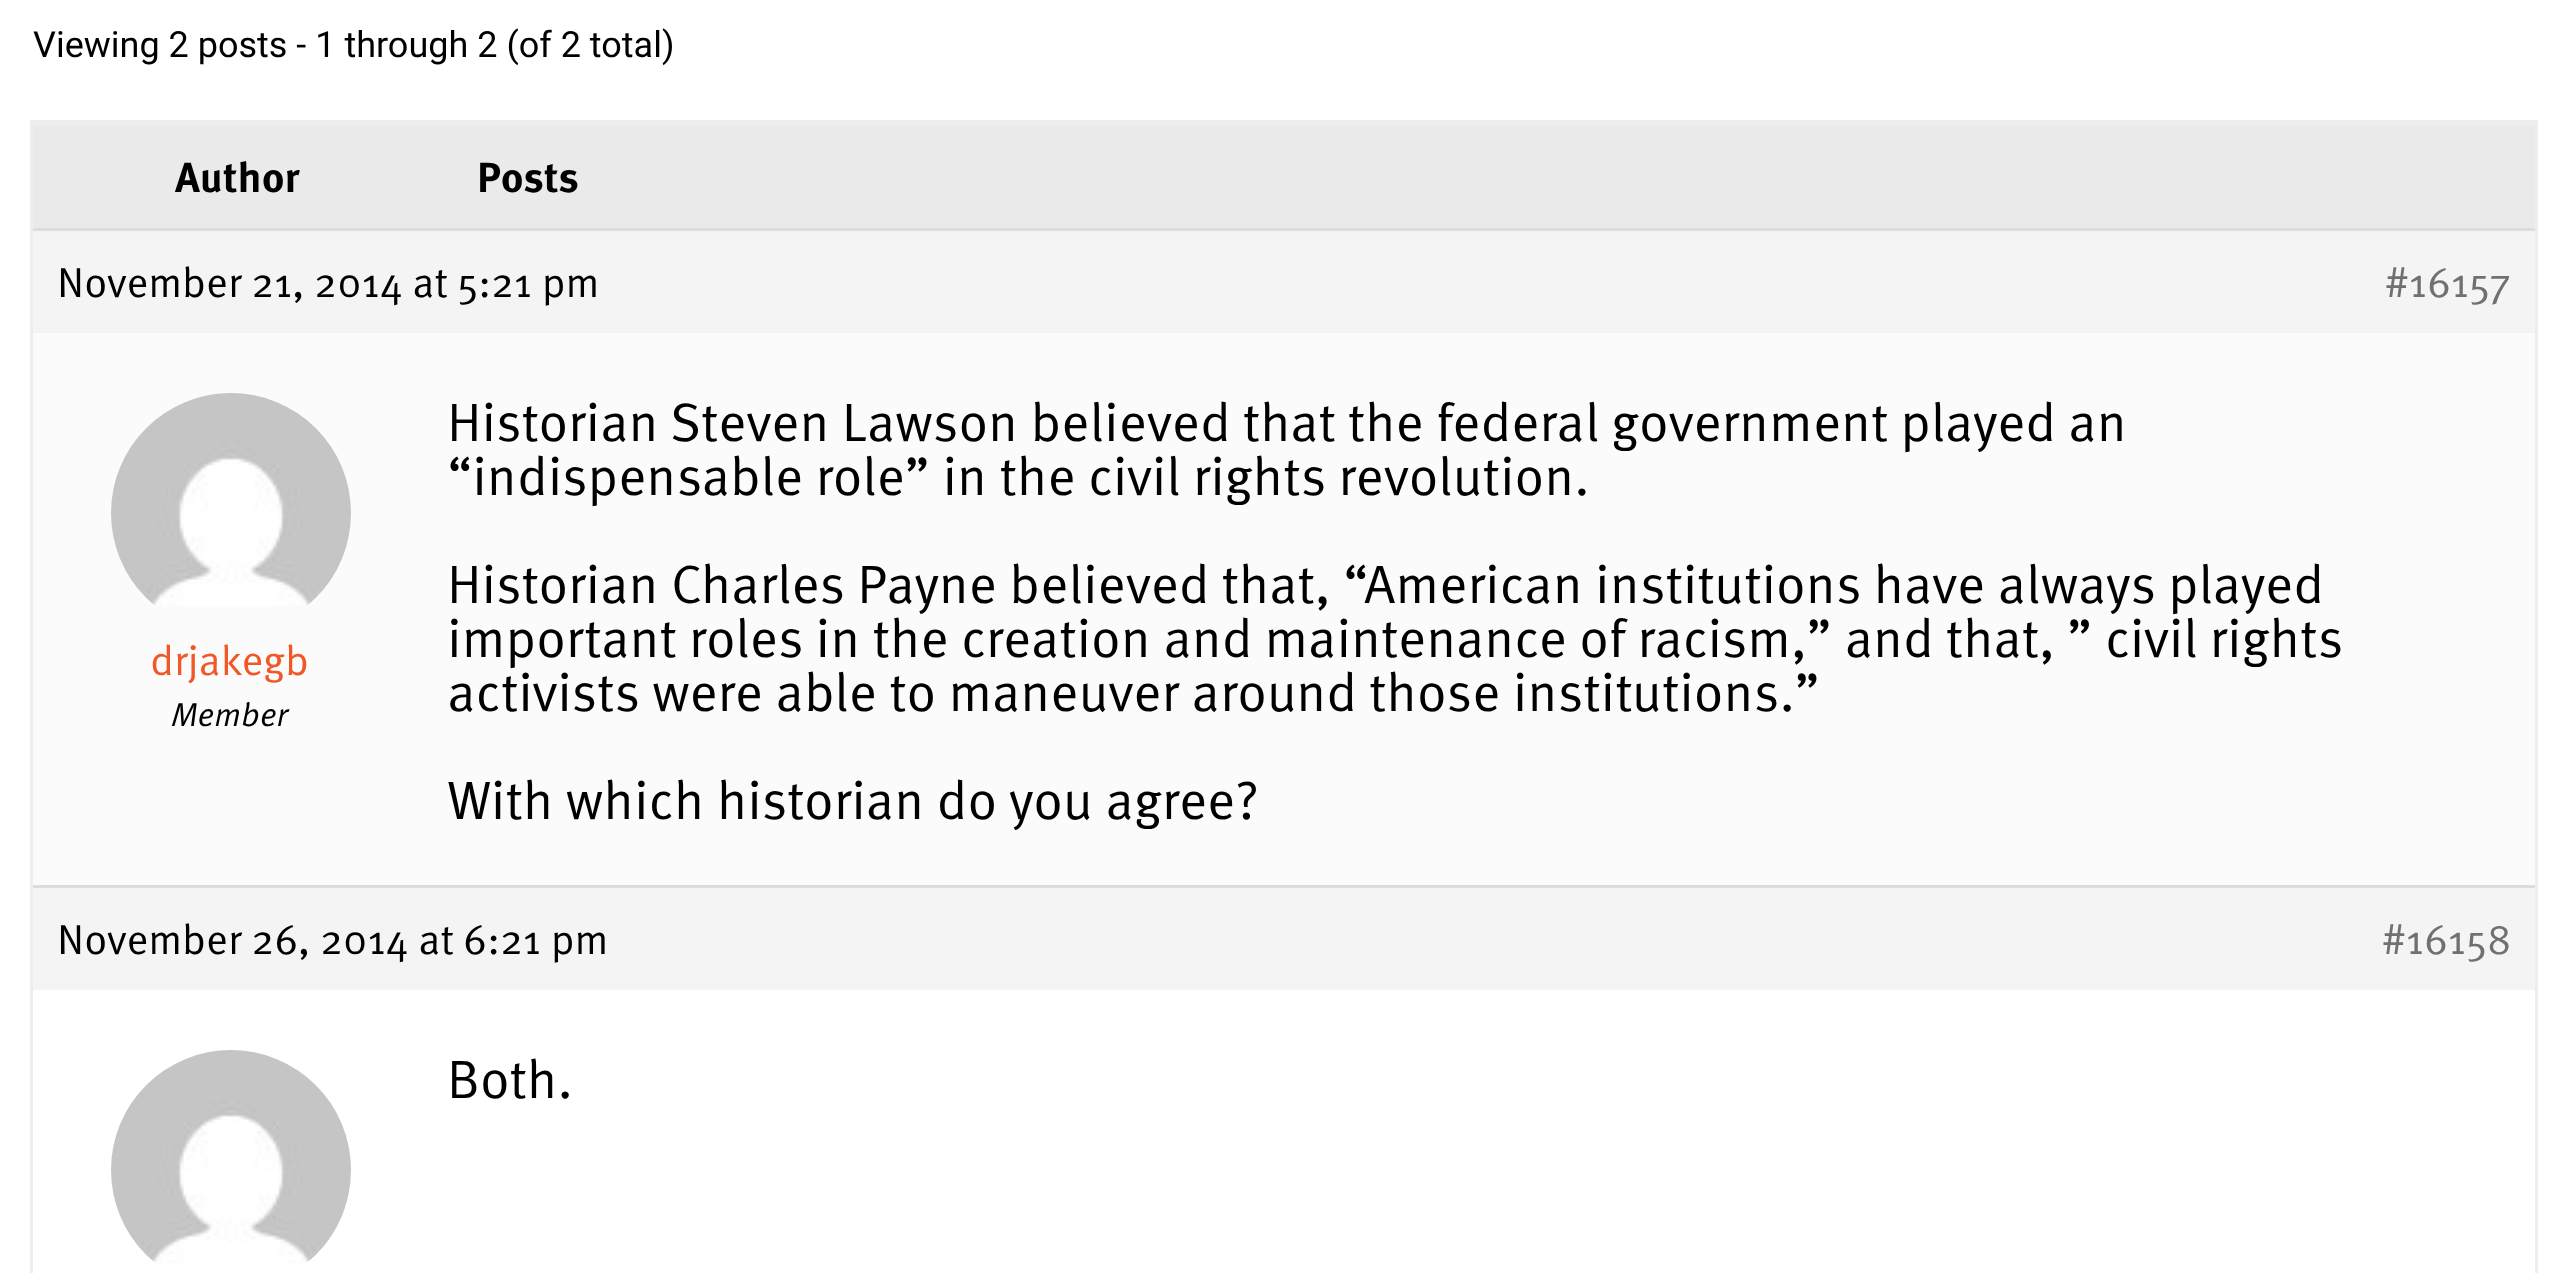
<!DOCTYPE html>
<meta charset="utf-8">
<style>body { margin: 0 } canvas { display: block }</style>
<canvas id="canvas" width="2568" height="1273"></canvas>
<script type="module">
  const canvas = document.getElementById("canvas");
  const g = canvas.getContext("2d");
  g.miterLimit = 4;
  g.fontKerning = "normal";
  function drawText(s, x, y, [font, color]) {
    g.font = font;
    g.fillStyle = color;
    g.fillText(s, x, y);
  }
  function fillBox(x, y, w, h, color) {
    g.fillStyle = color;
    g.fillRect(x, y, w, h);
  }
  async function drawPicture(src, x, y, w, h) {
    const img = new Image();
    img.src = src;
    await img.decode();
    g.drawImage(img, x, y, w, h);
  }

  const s1 = ["36px Roboto", "#000000"];
  const s2 = ["bold 42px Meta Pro", "#000000"];
  const s3 = ["42px Meta Pro", "#000000"];
  const s4 = ["42px Meta Pro", "#707070"];
  const s5 = ["42px Meta Pro", "#F15828"];
  const s6 = ["italic 33px Meta Pro", "#000000"];
  const s7 = ["54px Meta Pro", "#000000"];

  fillBox(0, 0, 2568, 1273, "#FFFFFF");
  drawText("Viewing 2 posts - 1 through 2 (of 2 total)", 33, 57, s1);
  g.strokeStyle = "#EEEEEE";
  g.lineWidth = 3;
  g.strokeRect(31.5, 121.5, 2505, 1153);
  fillBox(33, 126, 2502, 102, "#EAEAEA");
  fillBox(33, 123, 2502, 3, "#EEEEEE");
  drawText("Author", 175, 192, s2);
  drawText("Posts", 477, 192, s2);
  fillBox(33, 231, 2502, 102, "#F4F4F4");
  fillBox(33, 228, 2502, 3, "#DDDDDD");
  drawText("November 21, 2014 at 5:21 pm", 57, 297, s3);
  drawText("#16157", 2385, 297, s4);
  fillBox(33, 333, 2502, 552, "#FBFBFB");
  await drawPicture("pic1.png", 111, 393, 240, 213);
  drawText("drjakegb", 150, 675, s5);
  drawText("Member", 171, 726, s6);
  drawText("Historian Steven Lawson believed that the federal government played an", 447, 441, s7);
  drawText("“indispensable role” in the civil rights revolution.", 447, 495, s7);
  drawText("Historian Charles Payne believed that, “American institutions have always played", 447, 603, s7);
  drawText("important roles in the creation and maintenance of racism,” and that, ” civil rights", 447, 657, s7);
  drawText("activists were able to maneuver around those institutions.”", 447, 711, s7);
  drawText("With which historian do you agree?", 447, 819, s7);
  fillBox(33, 888, 2502, 102, "#F4F4F4");
  fillBox(33, 885, 2502, 3, "#DDDDDD");
  drawText("November 26, 2014 at 6:21 pm", 57, 954, s3);
  drawText("#16158", 2382, 954, s4);
  await drawPicture("pic2.png", 111, 1050, 240, 214);
  drawText("Both.", 447, 1098, s7);
</script>
